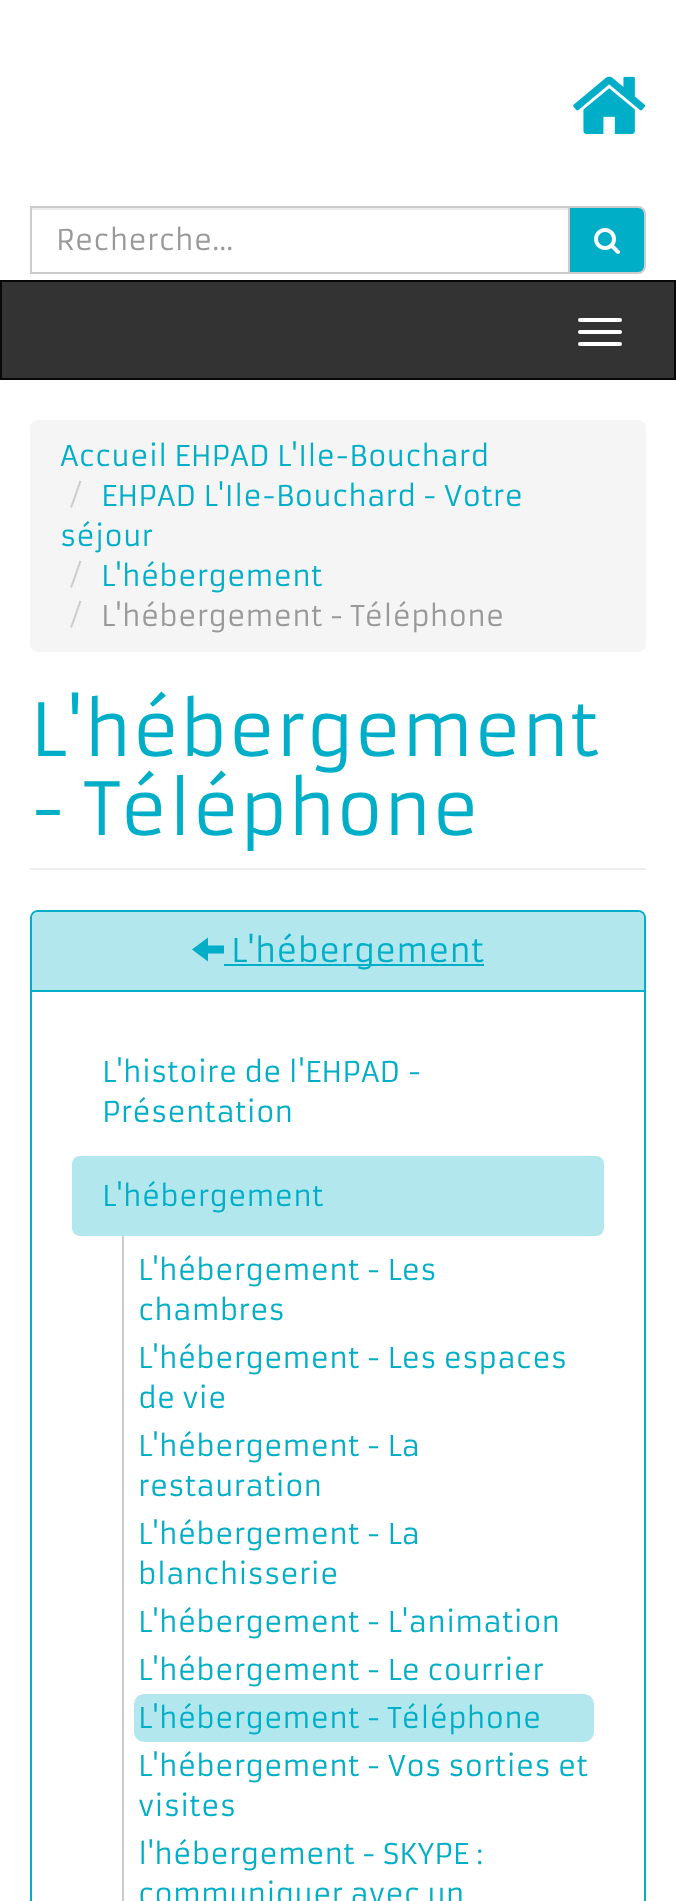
<!DOCTYPE html>
<meta charset="utf-8">
<style>body { margin: 0 } canvas { display: block }</style>
<canvas id="canvas" width="676" height="1901"></canvas>
<script type="module">
  const canvas = document.getElementById("canvas");
  const g = canvas.getContext("2d");
  g.miterLimit = 4;
  g.fontKerning = "normal";
  function drawText(s, x, y, [font, color]) {
    g.font = font;
    g.fillStyle = color;
    g.fillText(s, x, y);
  }
  function fillBox(x, y, w, h, color) {
    g.fillStyle = color;
    g.fillRect(x, y, w, h);
  }
  function fillRounded(x, y, w, h, r, color) {
    g.fillStyle = color;
    g.beginPath();
    g.roundRect(x, y, w, h, r);
    g.fill();
  }
  async function drawPicture(src, x, y, w, h) {
    const img = new Image();
    img.src = src;
    await img.decode();
    g.drawImage(img, x, y, w, h);
  }

  const s1 = ["28px Armata", "#999999"];
  const s2 = ["28px Armata", "#00AEC8"];
  const s3 = ["28px Armata", "#CCCCCC"];
  const s4 = ["72px Armata", "#00AEC8"];
  const s5 = ["32px Armata", "#00AEC8"];

  fillBox(0, 0, 676, 1901, "#FFFFFF");
  await drawPicture("pic1.png", 573, 76, 73, 58);
  fillBox(32, 208, 536, 2, "#ECECEC");
  g.strokeStyle = "#CCCCCC";
  g.lineWidth = 2;
  g.strokeRect(31, 207, 538, 66);
  drawText("Recherche...", 56, 250, s1);
  g.fillStyle = "#00AEC8";
  g.beginPath();
  g.roundRect(569, 207, 76, 66, [0, 7, 7, 0]);
  g.fill();
  g.stroke();
  await drawPicture("pic2.png", 594, 228, 26, 26);
  g.fillStyle = "#333333";
  g.beginPath();
  g.rect(1, 281, 674, 98);
  g.fill();
  g.strokeStyle = "#080808";
  g.stroke();
  fillRounded(578, 318, 44, 4, 2, "#FFFFFF");
  fillRounded(578, 330, 44, 4, 2, "#FFFFFF");
  fillRounded(578, 342, 44, 4, 2, "#FFFFFF");
  fillRounded(30, 420, 616, 232, 8, "#F5F5F5");
  drawText("Accueil EHPAD L'Ile-Bouchard", 60, 466, s2);
  drawText("/", 70, 506, s3);
  drawText("EHPAD L'Ile-Bouchard - Votre", 101, 506, s2);
  drawText("séjour", 60, 546, s2);
  drawText("/", 70, 586, s3);
  drawText("L'hébergement", 101, 586, s2);
  drawText("/", 70, 626, s3);
  drawText("L'hébergement - Téléphone", 101, 626, s1);
  fillBox(30, 868, 616, 2, "#EEEEEE");
  drawText("L'hébergement", 30, 756, s4);
  drawText("- Téléphone", 30, 835, s4);
  g.beginPath();
  g.roundRect(31, 911, 614, 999, 7);
  g.strokeStyle = "#00AEC8";
  g.stroke();
  g.fillStyle = "#B2E7EE";
  g.beginPath();
  g.roundRect(32, 912, 612, 80, [6, 6, 0, 0]);
  g.fill();
  fillBox(32, 990, 612, 2, "#00AEC8");
  g.beginPath();
  g.moveTo(192, 949.5);
  g.lineTo(208, 937.5);
  g.lineTo(208, 945.5);
  g.lineTo(224, 945.5);
  g.lineTo(224, 953.5);
  g.lineTo(208, 953.5);
  g.lineTo(208, 961.5);
  g.closePath();
  g.fill();
  fillBox(224, 964, 260, 2, "#00AEC8");
  drawText("L'hébergement", 231, 962, s5);
  drawText("L'histoire de l'EHPAD -", 102, 1082, s2);
  drawText("Présentation", 102, 1122, s2);
  fillRounded(72, 1156, 532, 80, 8, "#B2E7EE");
  drawText("L'hébergement", 102, 1206, s2);
  fillBox(122, 1236, 2, 665, "#CCCCCC");
  drawText("L'hébergement - Les", 138, 1280, s2);
  drawText("chambres", 138, 1320, s2);
  drawText("L'hébergement - Les espaces", 138, 1368, s2);
  drawText("de vie", 138, 1408, s2);
  drawText("L'hébergement - La", 138, 1456, s2);
  drawText("restauration", 138, 1496, s2);
  drawText("L'hébergement - La", 138, 1544, s2);
  drawText("blanchisserie", 138, 1584, s2);
  drawText("L'hébergement - L'animation", 138, 1632, s2);
  drawText("L'hébergement - Le courrier", 138, 1680, s2);
  fillRounded(134, 1694, 460, 48, 10, "#B2E7EE");
  drawText("L'hébergement - Téléphone", 138, 1728, s2);
  drawText("L'hébergement - Vos sorties et", 138, 1776, s2);
  drawText("visites", 138, 1816, s2);
  drawText("l'hébergement - SKYPE :", 138, 1864, s2);
  drawText("communiquer avec un", 138, 1904, s2);
</script>
